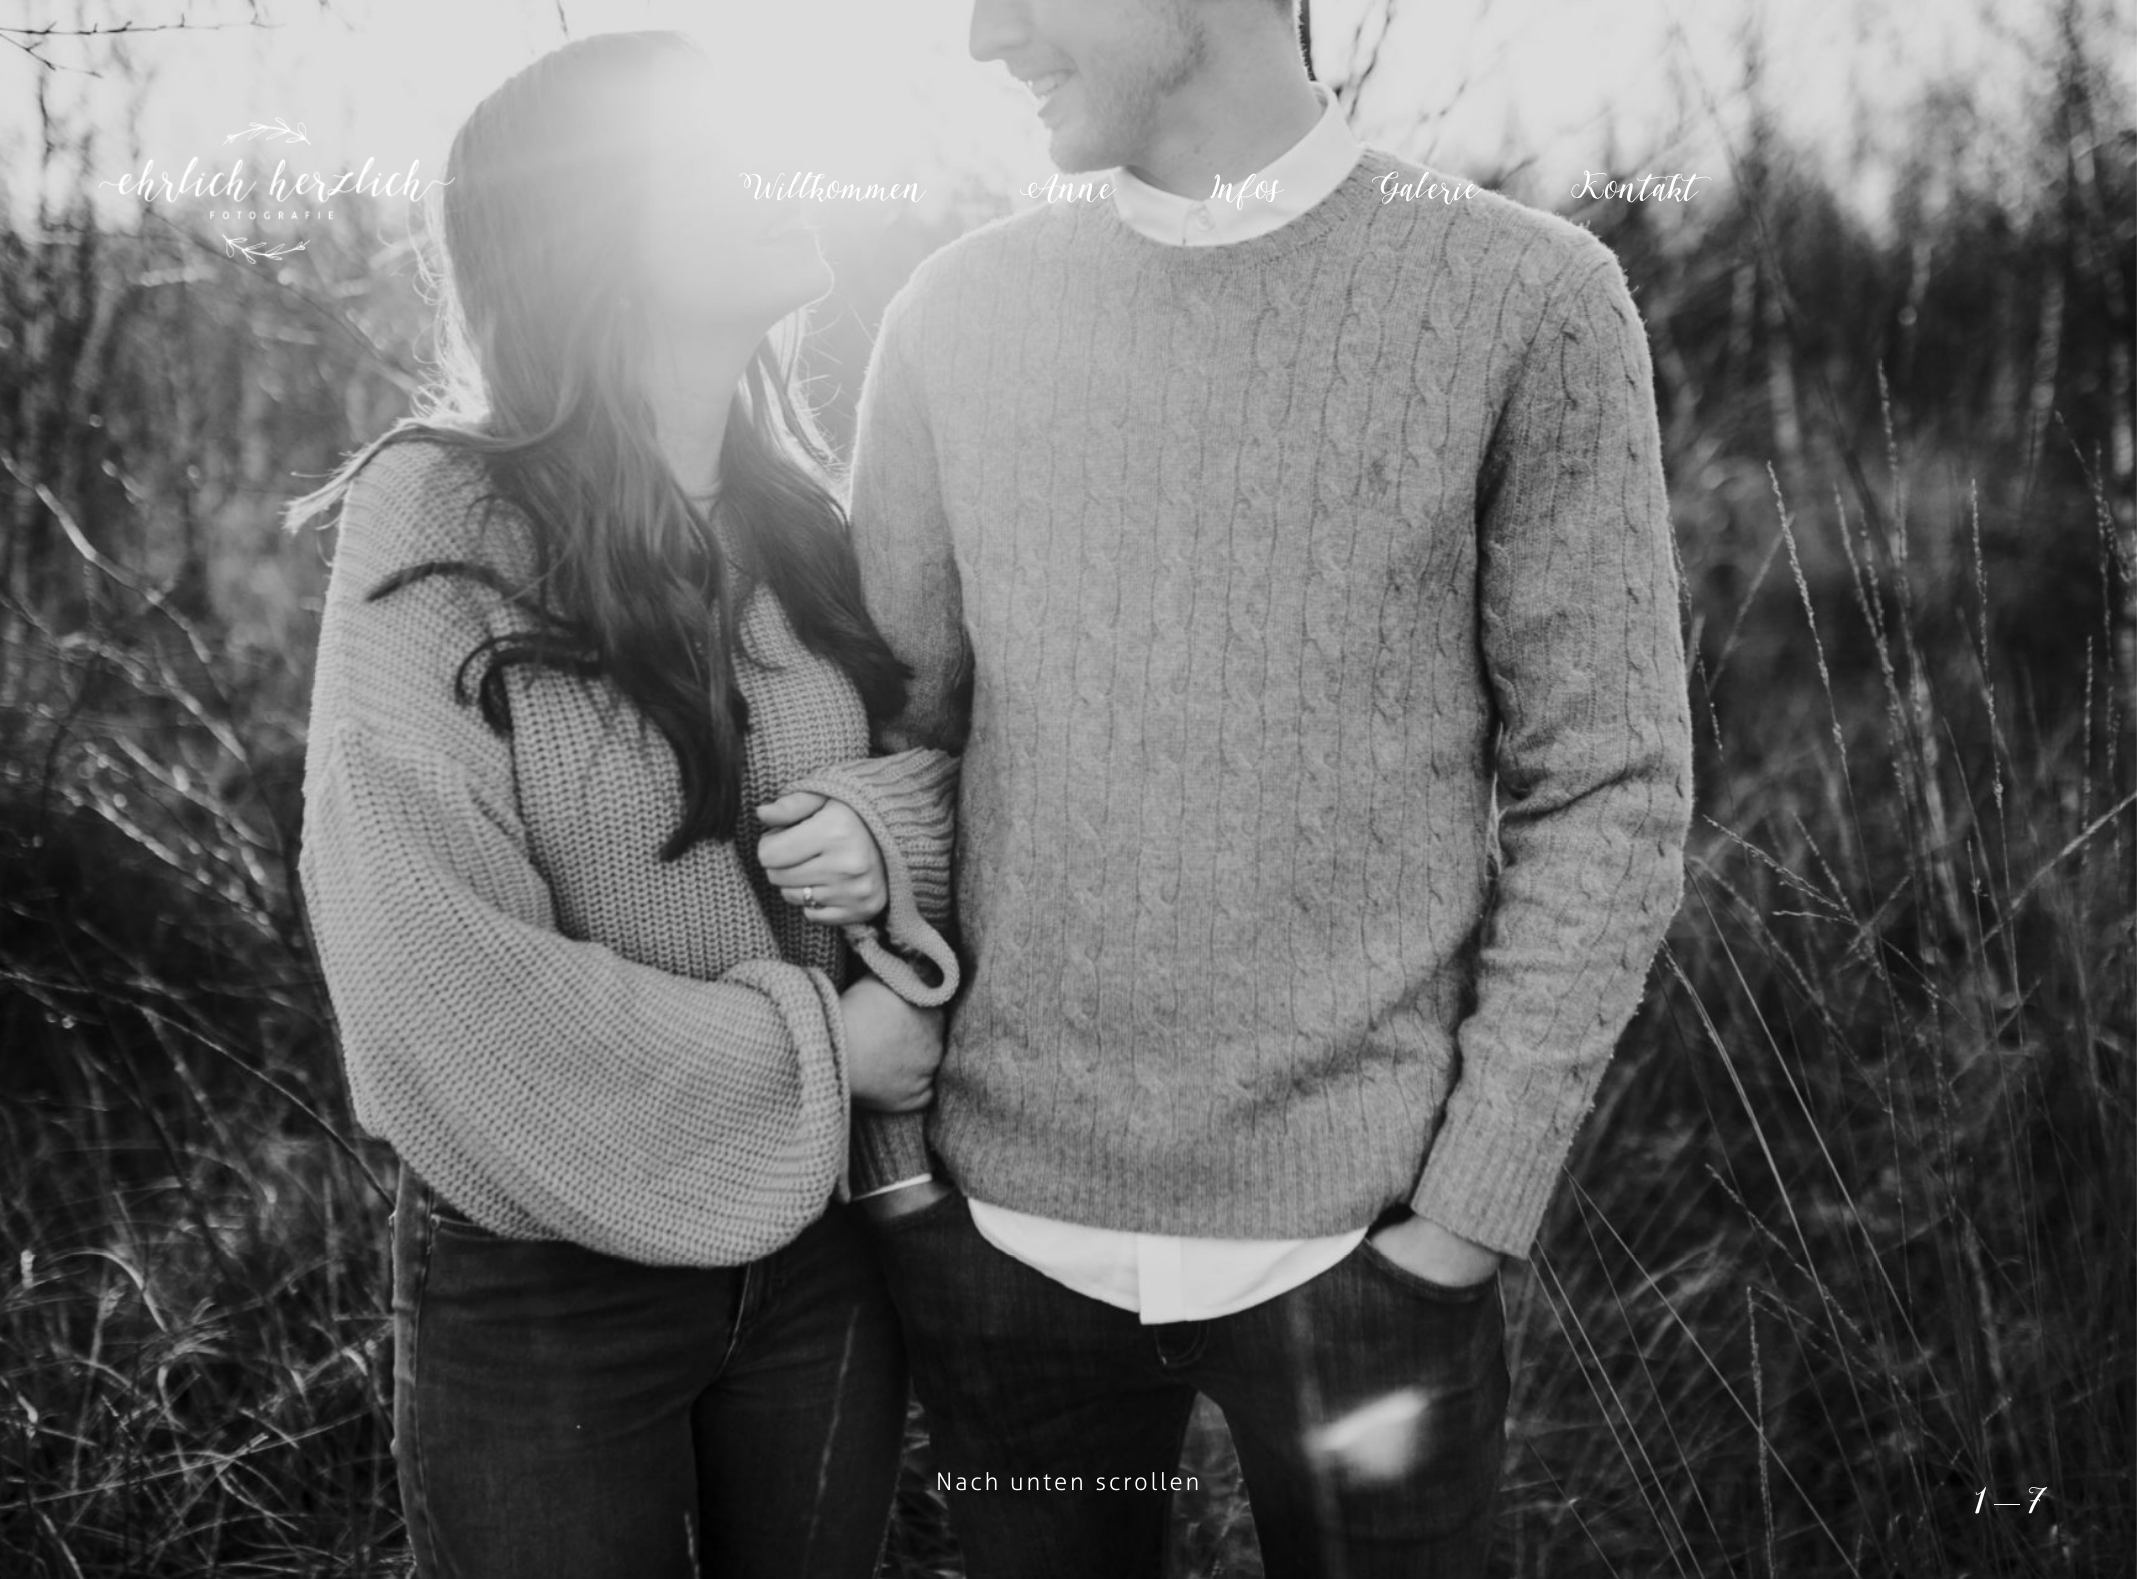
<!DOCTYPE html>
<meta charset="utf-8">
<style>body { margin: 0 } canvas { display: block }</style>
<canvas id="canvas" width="2137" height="1579"></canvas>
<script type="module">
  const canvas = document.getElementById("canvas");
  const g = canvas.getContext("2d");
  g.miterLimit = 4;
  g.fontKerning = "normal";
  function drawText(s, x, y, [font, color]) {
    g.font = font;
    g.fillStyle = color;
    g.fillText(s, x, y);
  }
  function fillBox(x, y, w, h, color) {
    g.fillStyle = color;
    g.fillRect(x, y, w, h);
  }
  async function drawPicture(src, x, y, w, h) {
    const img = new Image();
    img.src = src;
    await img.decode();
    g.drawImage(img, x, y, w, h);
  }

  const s1 = ["500 32.5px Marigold", "#FFFFFF"];
  const s2 = ["500 37px Marigold", "#FFFFFF"];

  fillBox(0, 0, 2137, 1579, "#FFFFFF");
  await drawPicture("pic2.png", 0, 0, 2137, 1579);
  await drawPicture("pic1.png", 98, 117, 358, 147);
  drawText("Willkommen", 745, 198, s1);
  drawText("Anne", 1020, 198, s1);
  drawText("Infos", 1210, 198, s1);
  drawText("Galerie", 1378, 198, s1);
  drawText("Kontakt", 1576, 198, s1);
  await drawPicture("pic3.png", 938, 1472, 260, 19);
  g.letterSpacing = "-1px";
  drawText("1", 1975, 1513, s2);
  fillBox(1994, 1504, 26, 1, "#FFFFFF");
  drawText("7", 2027, 1513, s2);
</script>
